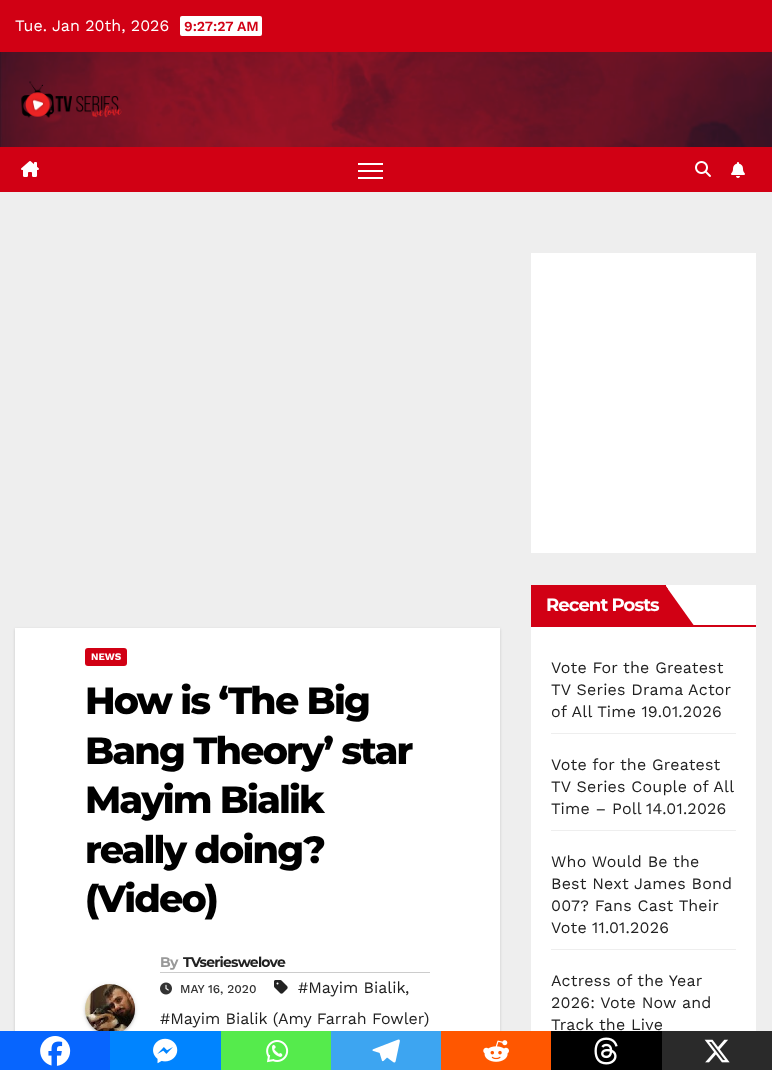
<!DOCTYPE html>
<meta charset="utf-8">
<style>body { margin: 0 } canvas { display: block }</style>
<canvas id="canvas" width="772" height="1070"></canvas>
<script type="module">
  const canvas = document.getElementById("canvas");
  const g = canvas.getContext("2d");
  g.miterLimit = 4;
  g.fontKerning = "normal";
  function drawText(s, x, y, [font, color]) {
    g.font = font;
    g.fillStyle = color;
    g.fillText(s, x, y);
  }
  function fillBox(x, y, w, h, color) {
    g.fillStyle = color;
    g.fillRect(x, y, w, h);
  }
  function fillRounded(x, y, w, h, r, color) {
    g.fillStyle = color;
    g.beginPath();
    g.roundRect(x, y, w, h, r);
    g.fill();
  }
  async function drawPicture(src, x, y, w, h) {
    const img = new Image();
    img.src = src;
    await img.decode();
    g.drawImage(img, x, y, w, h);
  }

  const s1 = ["16px Work Sans", "#FFFFFF"];
  const s2 = ["600 14px Work Sans", "#D10014"];
  const s3 = ["bold 10px Work Sans", "#FFFFFF"];
  const s4 = ["800 38px Montserrat", "#000000"];
  const s5 = ["bold 14px Montserrat", "#999999"];
  const s6 = ["bold 14px Montserrat", "#212121"];
  const s7 = ["16px Work Sans", "#212121"];
  const s8 = ["500 12px Work Sans", "#333333"];
  const s9 = ["bold 18px Montserrat", "#FFFFFF"];

  fillBox(0, 0, 772, 1070, "#EEEEEE");
  fillBox(0, 0, 772, 52, "#D10014");
  drawText("Tue. Jan 20th, 2026", 15, 31, s1);
  fillRounded(180, 16, 82, 20, 2, "#FFFFFF");
  drawText("9:27:27 AM", 184, 31, s2);
  await drawPicture("pic1.png", 0, 52, 772, 95);
  await drawPicture("pic2.png", 21, 81, 101, 37);
  fillBox(0, 147, 772, 45, "#D10014");
  await drawPicture("pic3.png", 21, 161, 18, 16);
  fillBox(358, 163, 25, 2, "#FFFFFF");
  fillBox(358, 170, 25, 2, "#FFFFFF");
  fillBox(358, 177, 25, 2, "#FFFFFF");
  await drawPicture("pic4.png", 695, 161, 16, 16);
  await drawPicture("pic5.png", 731, 162, 14, 16);
  g.fillStyle = "rgba(0, 0, 0, 0.15)";
  g.filter = "blur(1.5px)";
  g.beginPath();
  g.rect(15, 629, 485, 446);
  g.fill();
  g.filter = "none";
  fillBox(15, 628, 485, 403, "#FFFFFF");
  fillRounded(85, 648, 42, 18, 3, "#D10014");
  drawText("NEWS", 91, 660, s3);
  g.letterSpacing = "-1.9px";
  drawText("How is ‘The Big", 85, 714, s4);
  drawText("Bang Theory’ star", 85, 764, s4);
  drawText("Mayim Bialik", 85, 813, s4);
  drawText("really doing?", 85, 863, s4);
  drawText("(Video)", 85, 912, s4);
  g.fillStyle = "rgba(0, 0, 0, 0.12)";
  g.filter = "blur(2.5px)";
  g.beginPath();
  g.roundRect(85, 985, 50, 50, 25);
  g.fill();
  g.filter = "none";
  g.fillStyle = "rgba(0, 0, 0, 0.2)";
  g.filter = "blur(0.5px)";
  g.beginPath();
  g.roundRect(87, 989, 46, 46, 23);
  g.fill();
  g.filter = "none";
  g.fillStyle = "rgba(0, 0, 0, 0.14)";
  g.filter = "blur(1px)";
  g.beginPath();
  g.roundRect(85, 986, 50, 50, 25);
  g.fill();
  g.filter = "none";
  await drawPicture("pic6.png", 85, 984, 50, 47);
  fillBox(160, 972, 270, 1, "#CCCCCC");
  g.letterSpacing = "-0.75px";
  drawText("By", 160, 967, s5);
  drawText("TVserieswelove", 183, 967, s6);
  await drawPicture("pic7.png", 274, 980, 14, 14);
  g.letterSpacing = "0px";
  drawText("#Mayim Bialik", 298, 993, s7);
  drawText(",", 405, 993, s7);
  drawText("#Mayim Bialik (Amy Farrah Fowler)", 160, 1024, s7);
  await drawPicture("pic8.png", 160, 982, 12, 13);
  drawText("MAY 16, 2020", 180, 993, s8);
  fillBox(0, 1031, 110, 39, "#0765FE");
  await drawPicture("pic9.png", 40, 1036, 31, 30);
  fillBox(110, 1031, 111, 39, "#0084FF");
  await drawPicture("pic10.png", 153, 1038, 25, 26);
  fillBox(221, 1031, 110, 39, "#55EB4C");
  await drawPicture("pic11.png", 266, 1040, 23, 23);
  fillBox(331, 1031, 110, 39, "#3DA5F1");
  await drawPicture("pic12.png", 372, 1039, 28, 24);
  fillBox(441, 1031, 110, 39, "#FF5700");
  await drawPicture("pic13.png", 483, 1040, 26, 22);
  fillBox(551, 1031, 111, 39, "#000000");
  await drawPicture("pic14.png", 594, 1037, 24, 28);
  fillBox(662, 1031, 110, 39, "#2A2A2A");
  await drawPicture("pic15.png", 704, 1039, 26, 24);
  fillBox(531, 253, 225, 300, "#FFFFFF");
  fillBox(531, 585, 225, 446, "#FFFFFF");
  fillBox(531, 625, 225, 2, "#D10014");
  fillBox(531, 585, 135, 40, "#D10014");
  g.letterSpacing = "-0.9px";
  drawText("Recent Posts", 546, 611, s9);
  g.fillStyle = "#D10014";
  g.beginPath();
  g.moveTo(665, 585);
  g.lineTo(695, 627);
  g.lineTo(665, 627);
  g.closePath();
  g.fill();
  g.beginPath();
  g.moveTo(668, 589);
  g.lineTo(668, 624);
  g.lineTo(665, 627);
  g.lineTo(665, 585);
  g.closePath();
  g.fill();
  fillBox(551, 733, 185, 1, "#EEEEEE");
  g.letterSpacing = "0.2px";
  drawText("Vote For the Greatest", 551, 673, s7);
  drawText("TV Series Drama Actor", 551, 695, s7);
  drawText("of All Time 19.01.2026", 551, 717, s7);
  fillBox(551, 830, 185, 1, "#EEEEEE");
  drawText("Vote for the Greatest", 551, 770, s7);
  drawText("TV Series Couple of All", 551, 792, s7);
  drawText("Time – Poll", 551, 814, s7);
  drawText("14.01.2026", 646, 814, s7);
  fillBox(551, 949, 185, 1, "#EEEEEE");
  drawText("Who Would Be the", 551, 867, s7);
  drawText("Best Next James Bond", 551, 889, s7);
  drawText("007? Fans Cast Their", 551, 911, s7);
  drawText("Vote", 551, 933, s7);
  drawText("11.01.2026", 592, 933, s7);
  drawText("Actress of the Year", 551, 986, s7);
  drawText("2026: Vote Now and", 551, 1008, s7);
  drawText("Track the Live", 551, 1030, s7);
</script>
